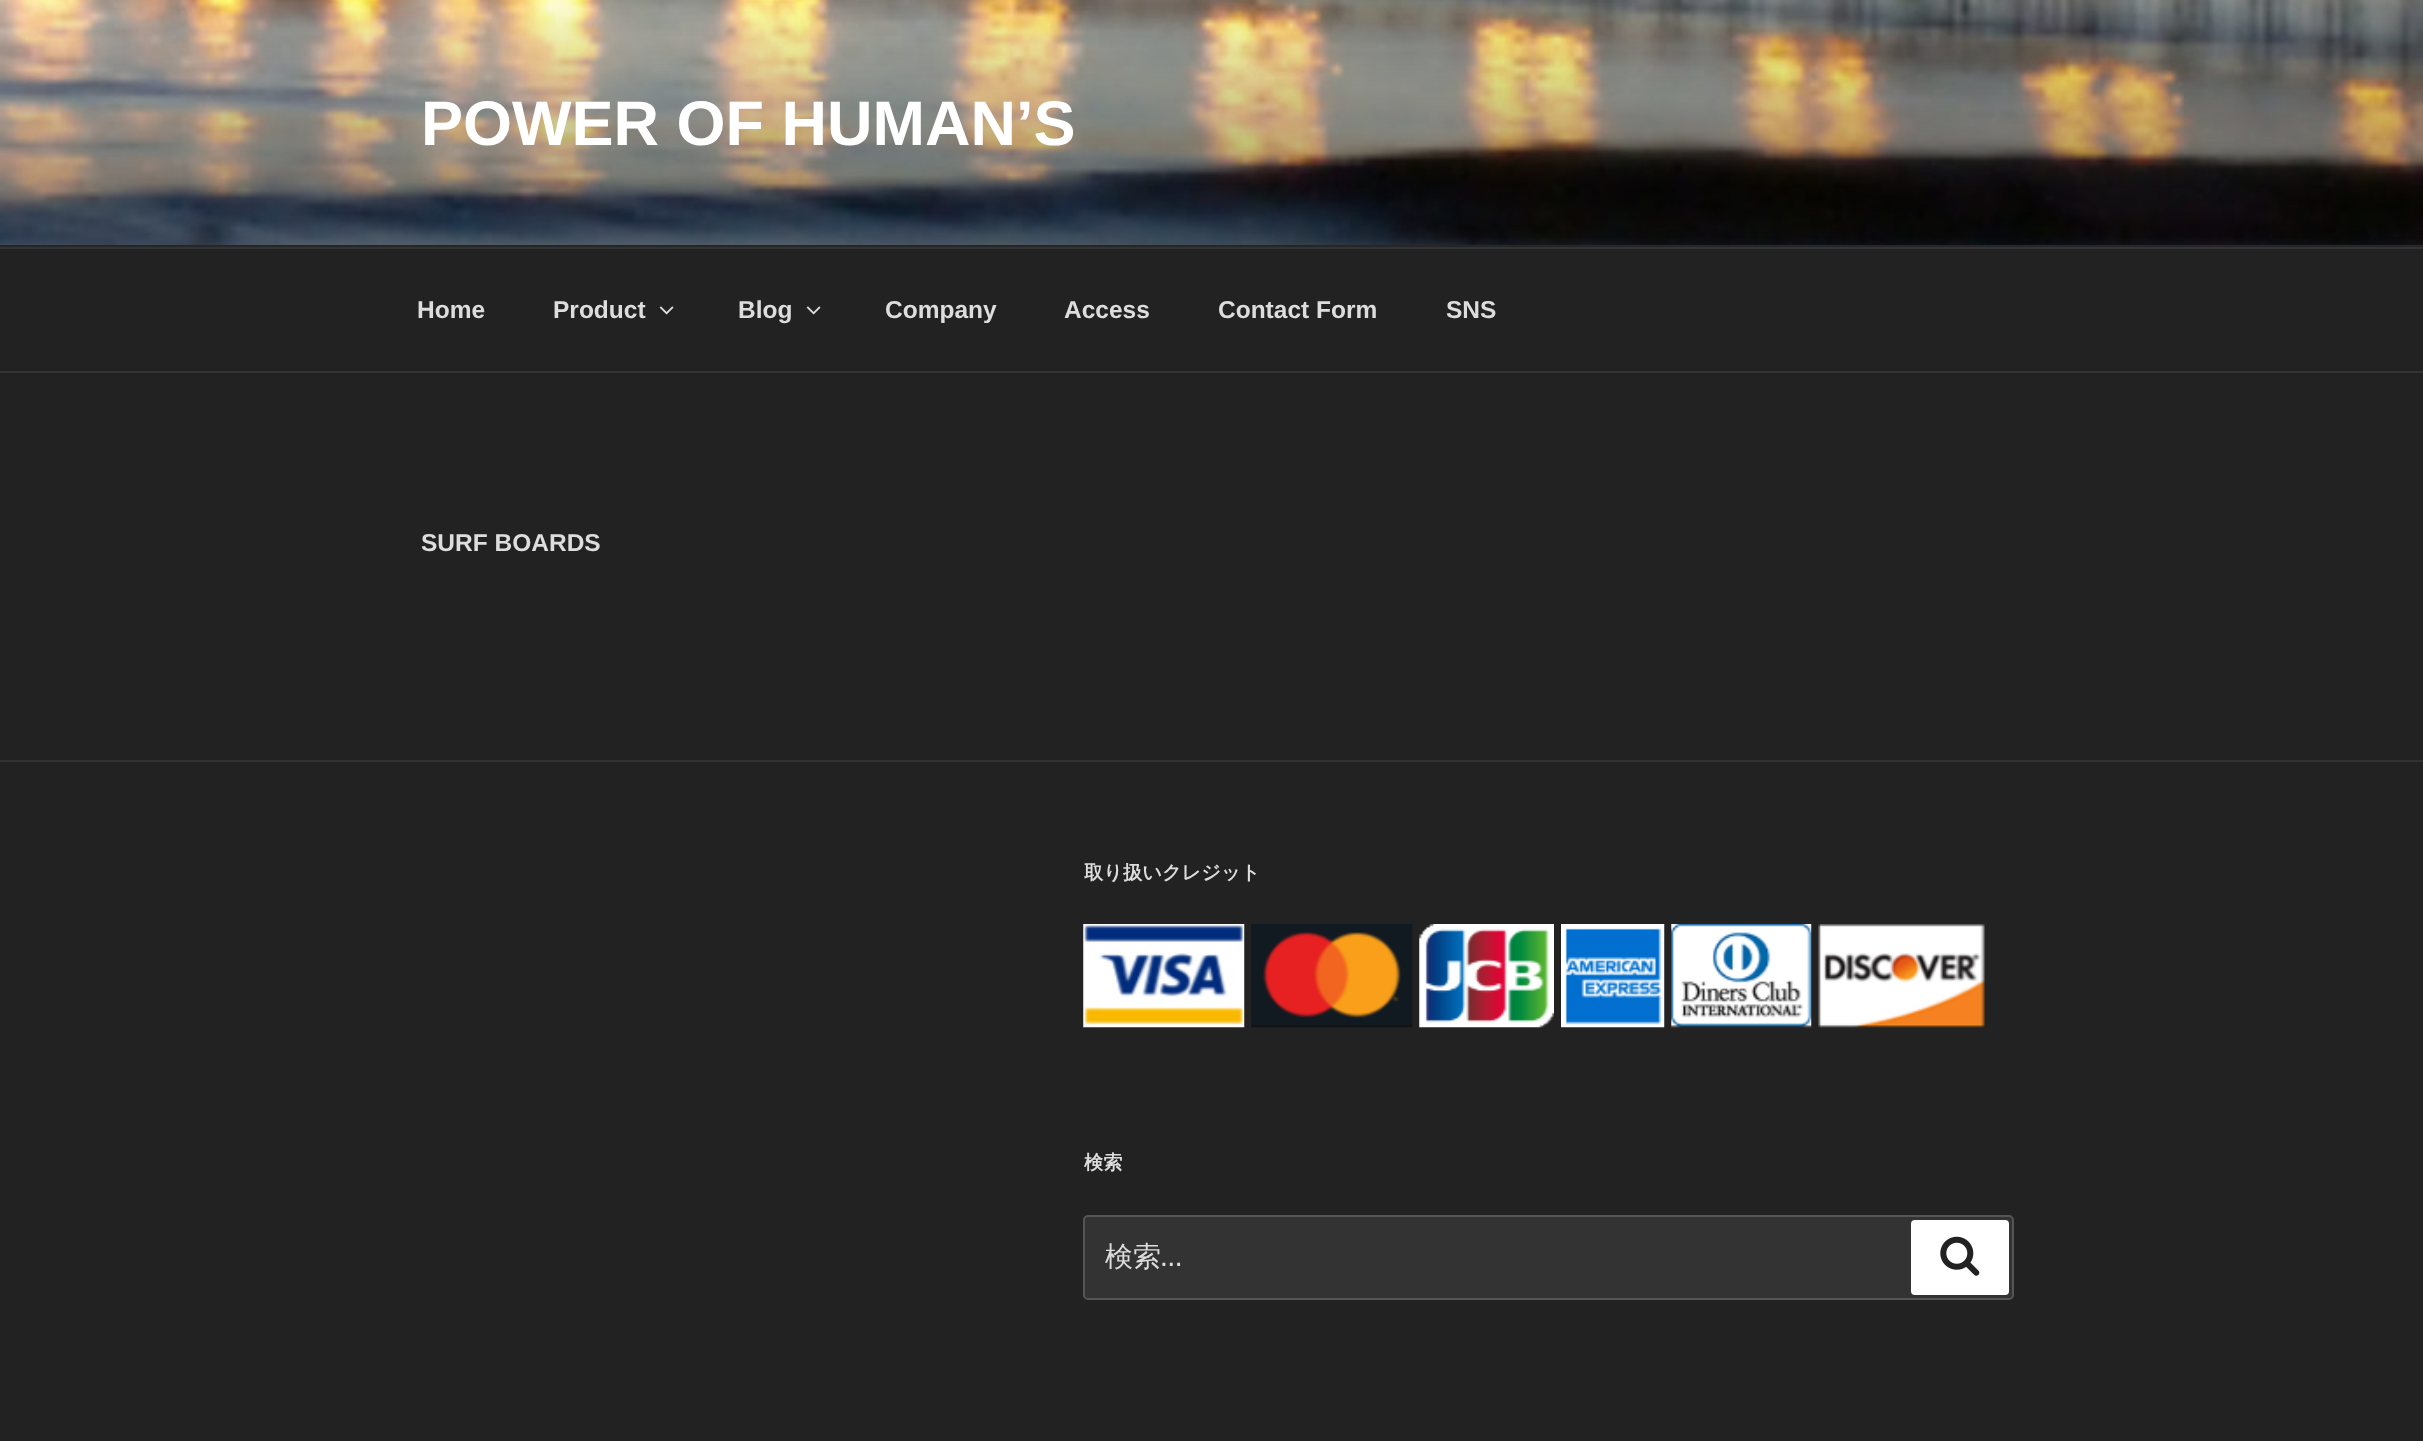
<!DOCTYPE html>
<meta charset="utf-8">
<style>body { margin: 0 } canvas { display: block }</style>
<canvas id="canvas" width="2423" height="1441"></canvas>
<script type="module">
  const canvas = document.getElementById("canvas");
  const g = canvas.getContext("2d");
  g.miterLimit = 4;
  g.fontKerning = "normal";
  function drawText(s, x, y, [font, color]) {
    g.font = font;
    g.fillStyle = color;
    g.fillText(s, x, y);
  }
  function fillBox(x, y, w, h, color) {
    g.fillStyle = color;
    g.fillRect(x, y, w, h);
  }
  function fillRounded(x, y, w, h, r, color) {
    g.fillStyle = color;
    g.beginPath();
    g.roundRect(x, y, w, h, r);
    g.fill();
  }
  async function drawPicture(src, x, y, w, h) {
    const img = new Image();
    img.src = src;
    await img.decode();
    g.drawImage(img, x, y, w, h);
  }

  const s1 = ["bold 63px Liberation Sans", "#FFFFFF"];
  const s2 = ["bold 24.5px Liberation Sans", "#DDDDDD"];
  const s3 = ["bold 19.25px WenQuanYi Zen Hei", "#DDDDDD"];
  const s4 = ["500 28px WenQuanYi Zen Hei", "#DDDDDD"];
  const s5 = ["28px Libre Franklin", "#DDDDDD"];

  fillBox(0, 0, 2423, 1441, "#222222");
  fillBox(0, 245, 2423, 2, "#262626");
  await drawPicture("pic1.png", 0, 0, 2423, 245);
  drawText("POWER OF HUMAN’S", 421, 145, s1);
  fillBox(0, 247, 2423, 2, "#333333");
  fillBox(0, 371, 2423, 2, "#333333");
  drawText("Home", 417, 318, s2);
  drawText("Product", 553, 318, s2);
  await drawPicture("pic2.png", 659, 306, 15, 9);
  drawText("Blog", 738, 318, s2);
  await drawPicture("pic2.png", 806, 306, 15, 9);
  drawText("Company", 885, 318, s2);
  drawText("Access", 1064, 318, s2);
  drawText("Contact Form", 1218, 318, s2);
  drawText("SNS", 1446, 318, s2);
  drawText("SURF BOARDS", 421, 551, s2);
  fillBox(0, 760, 2423, 2, "#333333");
  drawText("取り扱いクレジット", 1084, 879, s3);
  await drawPicture("pic3.png", 1083, 924, 162, 104);
  await drawPicture("pic4.png", 1251, 924, 162, 104);
  await drawPicture("pic5.png", 1419, 924, 135, 104);
  await drawPicture("pic6.png", 1561, 924, 104, 104);
  await drawPicture("pic7.png", 1671, 924, 141, 104);
  await drawPicture("pic8.png", 1818, 924, 167, 104);
  drawText("検索", 1084, 1169, s3);
  g.fillStyle = "#333333";
  g.beginPath();
  g.roundRect(1084, 1216, 929, 83, 4);
  g.fill();
  g.strokeStyle = "#555555";
  g.lineWidth = 2;
  g.stroke();
  drawText("検索", 1105, 1266, s4);
  drawText("…", 1161, 1266, s5);
  fillRounded(1911, 1220, 98, 75, 4, "#FFFFFF");
  await drawPicture("pic9.png", 1940, 1236, 40, 40);
</script>
